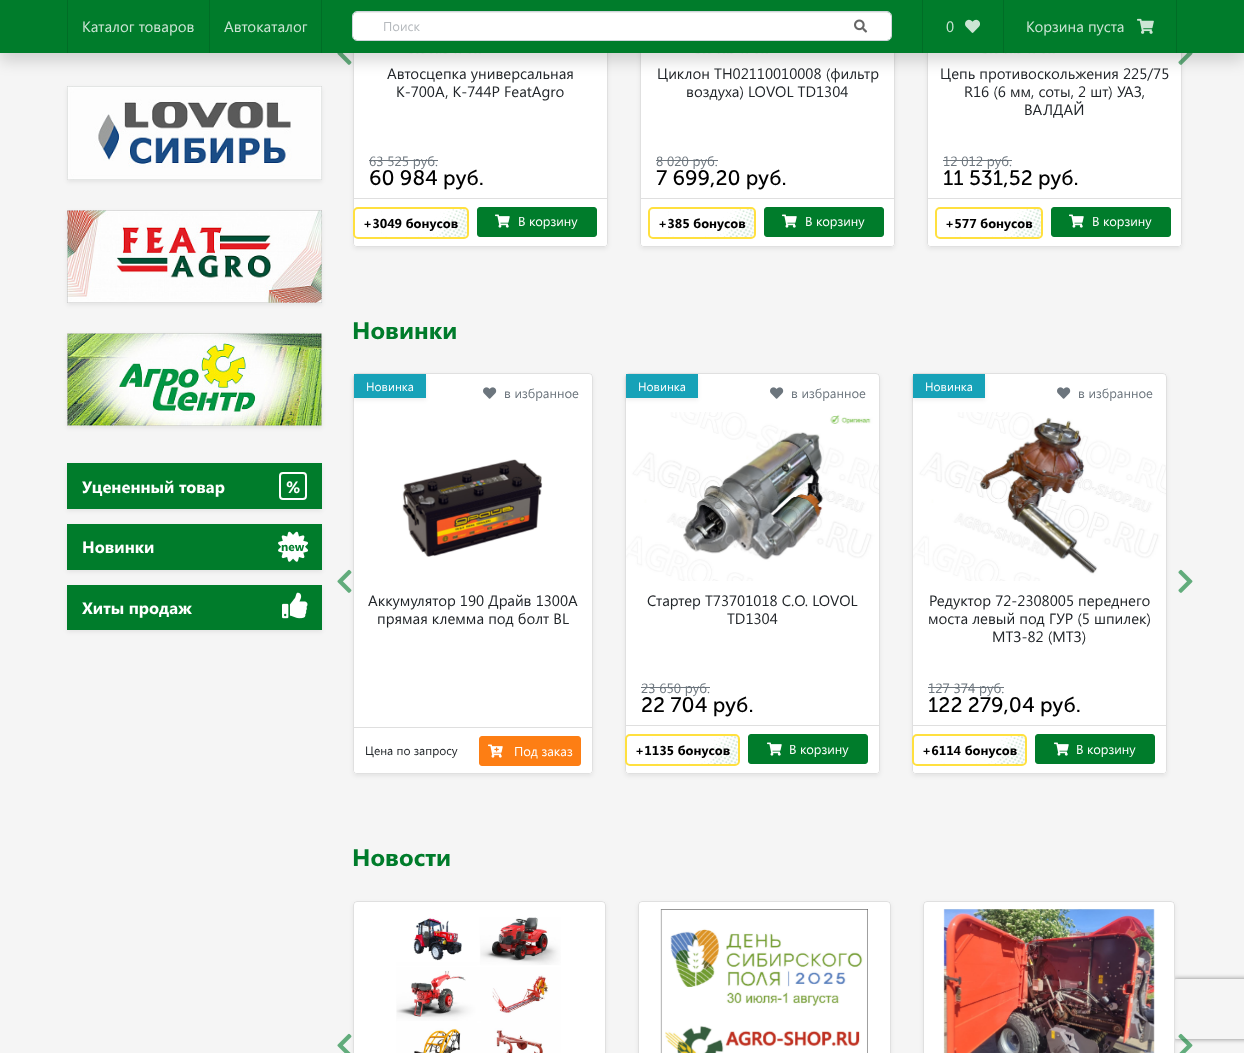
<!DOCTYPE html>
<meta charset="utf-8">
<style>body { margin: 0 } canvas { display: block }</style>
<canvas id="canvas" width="1244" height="1053"></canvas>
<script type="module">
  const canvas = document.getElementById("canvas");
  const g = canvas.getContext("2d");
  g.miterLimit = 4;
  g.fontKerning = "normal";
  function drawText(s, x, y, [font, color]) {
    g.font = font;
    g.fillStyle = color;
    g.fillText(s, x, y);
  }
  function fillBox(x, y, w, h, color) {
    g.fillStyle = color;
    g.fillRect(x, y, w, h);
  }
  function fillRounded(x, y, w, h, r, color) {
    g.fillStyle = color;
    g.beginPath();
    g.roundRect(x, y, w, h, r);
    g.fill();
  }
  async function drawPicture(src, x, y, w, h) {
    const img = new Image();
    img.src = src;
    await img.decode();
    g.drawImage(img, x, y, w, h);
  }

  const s1 = ["15px Segoe UI", "#CCE5D5"];
  const s2 = ["13px Segoe UI", "#B6BABE"];
  const s3 = ["bold 16.5px Segoe UI", "#FFFFFF"];
  const s4 = ["bold 12px Segoe UI", "#007C2B"];
  const s5 = ["15px Segoe UI", "#212529"];
  const s6 = ["13.5px Segoe UI", "#6C757D"];
  const s7 = ["21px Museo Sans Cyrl", "#000000"];
  const s8 = ["bold 13px Segoe UI", "#000000"];
  const s9 = ["13px Segoe UI", "#FFFFFF"];
  const s10 = ["bold 24px Segoe UI", "#007C2B"];
  const s11 = ["12px Segoe UI", "#FFFFFF"];
  const s12 = ["13px Segoe UI", "#6C757D"];
  const s13 = ["12px Segoe UI", "#212529"];

  fillBox(0, 0, 1244, 1053, "#F5F5F5");
  g.fillStyle = "rgba(0, 0, 0, 0.07)";
  g.filter = "blur(2px)";
  g.beginPath();
  g.roundRect(353, -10, 255, 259, 4);
  g.fill();
  g.filter = "none";
  await drawPicture("pic9.png", 337, 53, 15, 12);
  g.filter = "blur(2px)";
  g.beginPath();
  g.roundRect(927, -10, 255, 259, 4);
  g.fill();
  g.filter = "none";
  fillRounded(927, -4, 255, 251, 4, "#FFFFFF");
  g.beginPath();
  g.roundRect(927.5, -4.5, 254, 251, 3.5);
  g.strokeStyle = "rgba(0, 0, 0, 0.12)";
  g.stroke();
  await drawPicture("pic10.png", 1178, 53, 15, 12);
  fillRounded(353, -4, 255, 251, 4, "#FFFFFF");
  g.beginPath();
  g.roundRect(353.5, -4.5, 254, 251, 3.5);
  g.stroke();
  await drawPicture("pic11.png", 354, 53, 246, 1);
  g.fillStyle = "rgba(0, 0, 0, 0.07)";
  g.filter = "blur(2px)";
  g.beginPath();
  g.roundRect(640, -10, 255, 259, 4);
  g.fill();
  g.filter = "none";
  fillRounded(640, -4, 255, 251, 4, "#FFFFFF");
  g.beginPath();
  g.roundRect(640.5, -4.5, 254, 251, 3.5);
  g.stroke();
  await drawPicture("pic14.png", 641, 53, 246, 1);
  await drawPicture("pic15.png", 928, 53, 246, 1);
  g.fillStyle = "rgba(0, 0, 0, 0.15)";
  g.filter = "blur(7.5px)";
  g.beginPath();
  g.rect(0, 8, 1244, 53);
  g.fill();
  g.filter = "none";
  fillBox(0, 0, 1244, 53, "#007C2B");
  fillBox(67, 0, 1, 53, "#006D26");
  fillBox(209, 0, 1, 53, "#006D26");
  drawText("Каталог товаров", 82, 32, s1);
  fillBox(321, 0, 1, 53, "#006D26");
  drawText("Автокаталог", 224, 32, s1);
  fillRounded(353, 12, 538, 28, 4, "#FFFFFF");
  g.fillStyle = "rgba(0, 0, 0, 0.07)";
  g.beginPath();
  g.moveTo(357, 13);
  g.lineTo(887, 13);
  g.bezierCurveTo(889, 13, 891, 15, 891, 17);
  g.lineTo(891, 16);
  g.bezierCurveTo(891, 14, 889, 12, 887, 12);
  g.lineTo(357, 12);
  g.bezierCurveTo(355, 12, 353, 14, 353, 16);
  g.lineTo(353, 17);
  g.bezierCurveTo(353, 15, 355, 13, 357, 13);
  g.closePath();
  g.fill();
  g.beginPath();
  g.roundRect(352.5, 11.5, 539, 29, 4.5);
  g.strokeStyle = "#CED4DA";
  g.stroke();
  drawText("Поиск", 383, 31, s2);
  await drawPicture("pic1.png", 854, 19, 14, 14);
  fillBox(922, 0, 1, 53, "#006D26");
  fillBox(1003, 0, 1, 53, "#006D26");
  drawText("0", 946, 32, s1);
  await drawPicture("pic2.png", 965, 19, 15, 14);
  fillBox(1176, 0, 1, 53, "#006D26");
  drawText("Корзина пуста", 1026, 32, s1);
  await drawPicture("pic3.png", 1137, 18, 17, 16);
  g.fillStyle = "rgba(0, 0, 0, 0.07)";
  g.filter = "blur(2px)";
  g.beginPath();
  g.rect(67, 88, 255, 94);
  g.fill();
  g.filter = "none";
  await drawPicture("pic4.png", 67, 86, 255, 94);
  g.filter = "blur(2px)";
  g.beginPath();
  g.rect(67, 212, 255, 93);
  g.fill();
  g.filter = "none";
  await drawPicture("pic5.png", 67, 210, 255, 93);
  g.filter = "blur(2px)";
  g.beginPath();
  g.rect(67, 335, 255, 93);
  g.fill();
  g.filter = "none";
  await drawPicture("pic6.png", 67, 333, 255, 93);
  g.filter = "blur(2px)";
  g.beginPath();
  g.rect(67, 465, 255, 46);
  g.fill();
  g.filter = "none";
  fillBox(67, 463, 255, 46, "#007C2B");
  drawText("Уцененный товар", 82, 493, s3);
  g.beginPath();
  g.roundRect(280, 473, 26, 26, 3);
  g.strokeStyle = "#FFFFFF";
  g.lineWidth = 2;
  g.stroke();
  drawText("%", 286, 493, s3);
  g.fillStyle = "rgba(0, 0, 0, 0.07)";
  g.filter = "blur(2px)";
  g.beginPath();
  g.rect(67, 526, 255, 46);
  g.fill();
  g.filter = "none";
  fillBox(67, 524, 255, 46, "#007C2B");
  drawText("Новинки", 82, 553, s3);
  await drawPicture("pic7.png", 278, 531, 30, 31);
  drawText("new", 281, 551, s4);
  g.fillStyle = "rgba(0, 0, 0, 0.07)";
  g.filter = "blur(2px)";
  g.beginPath();
  g.rect(67, 587, 255, 45);
  g.fill();
  g.filter = "none";
  fillBox(67, 585, 255, 45, "#007C2B");
  drawText("Хиты продаж", 82, 614, s3);
  await drawPicture("pic8.png", 282, 592, 26, 27);
  drawText("Автосцепка универсальная", 387, 79, s5);
  drawText("К-700А, К-744Р FeatAgro", 396, 97, s5);
  drawText("63 525 руб.", 369, 166, s6);
  fillBox(369, 160, 69, 1, "#6C757D");
  drawText("60 984 руб.", 369, 185, s7);
  g.fillStyle = "#FFFFFF";
  g.beginPath();
  g.roundRect(354, 198, 253, 48, [0, 0, 3, 3]);
  g.fill();
  fillBox(354, 198, 253, 1, "#DFDFDF");
  await drawPicture("pic12.png", 381, 209, 86, 28);
  g.beginPath();
  g.roundRect(354, 208, 114, 30, 4);
  g.strokeStyle = "#FFE03F";
  g.stroke();
  drawText("+3049 бонусов", 363, 228, s8);
  g.fillStyle = "#007C2B";
  g.beginPath();
  g.roundRect(477.5, 207.5, 119, 29, 2.5);
  g.fill();
  g.strokeStyle = "#007C2B";
  g.lineWidth = 1;
  g.stroke();
  await drawPicture("pic13.png", 495, 214, 15, 14);
  drawText("В корзину", 518, 226, s9);
  drawText("Циклон TH02110010008 (фильтр", 657, 79, s5);
  drawText("воздуха) LOVOL TD1304", 686, 97, s5);
  drawText("8 020 руб.", 656, 166, s6);
  fillBox(656, 160, 62, 1, "#6C757D");
  drawText("7 699,20 руб.", 656, 185, s7);
  g.fillStyle = "#FFFFFF";
  g.beginPath();
  g.roundRect(641, 198, 253, 48, [0, 0, 3, 3]);
  g.fill();
  fillBox(641, 198, 253, 1, "#DFDFDF");
  await drawPicture("pic12.png", 668, 209, 86, 28);
  g.beginPath();
  g.roundRect(649, 208, 106, 30, 4);
  g.strokeStyle = "#FFE03F";
  g.lineWidth = 2;
  g.stroke();
  drawText("+385 бонусов", 658, 228, s8);
  g.fillStyle = "#007C2B";
  g.beginPath();
  g.roundRect(764.5, 207.5, 119, 29, 2.5);
  g.fill();
  g.strokeStyle = "#007C2B";
  g.lineWidth = 1;
  g.stroke();
  await drawPicture("pic13.png", 782, 214, 15, 14);
  drawText("В корзину", 805, 226, s9);
  drawText("Цепь противоскольжения 225/75", 940, 79, s5);
  drawText("R16 (6 мм, соты, 2 шт) УАЗ,", 964, 97, s5);
  drawText("ВАЛДАЙ", 1024, 115, s5);
  drawText("12 012 руб.", 943, 166, s6);
  fillBox(943, 160, 69, 1, "#6C757D");
  drawText("11 531,52 руб.", 943, 185, s7);
  g.fillStyle = "#FFFFFF";
  g.beginPath();
  g.roundRect(928, 198, 253, 48, [0, 0, 3, 3]);
  g.fill();
  fillBox(928, 198, 253, 1, "#DFDFDF");
  await drawPicture("pic12.png", 955, 209, 86, 28);
  g.beginPath();
  g.roundRect(936, 208, 106, 30, 4);
  g.strokeStyle = "#FFE03F";
  g.lineWidth = 2;
  g.stroke();
  drawText("+577 бонусов", 945, 228, s8);
  g.fillStyle = "#007C2B";
  g.beginPath();
  g.roundRect(1051.5, 207.5, 119, 29, 2.5);
  g.fill();
  g.strokeStyle = "#007C2B";
  g.lineWidth = 1;
  g.stroke();
  await drawPicture("pic13.png", 1069, 214, 15, 14);
  drawText("В корзину", 1092, 226, s9);
  drawText("Новинки", 352, 339, s10);
  g.fillStyle = "rgba(0, 0, 0, 0.07)";
  g.filter = "blur(2px)";
  g.beginPath();
  g.roundRect(353, 375, 240, 401, 4);
  g.fill();
  g.filter = "none";
  fillRounded(353, 373, 240, 401, 4, "#FFFFFF");
  g.beginPath();
  g.roundRect(353.5, 373.5, 239, 400, 3.5);
  g.strokeStyle = "rgba(0, 0, 0, 0.12)";
  g.stroke();
  g.fillStyle = "rgba(0, 0, 0, 0.07)";
  g.filter = "blur(2px)";
  g.beginPath();
  g.rect(354, 376, 72, 24);
  g.fill();
  g.filter = "none";
  fillBox(354, 374, 72, 24, "#17A2B8");
  drawText("Новинка", 366, 391, s11);
  g.beginPath();
  g.roundRect(354, 727, 238, 46, [0, 0, 3, 3]);
  g.fill();
  fillBox(354, 727, 238, 1, "#DFDFDF");
  await drawPicture("pic16.png", 483, 387, 14, 12);
  drawText("в избранное", 504, 398, s12);
  drawText("Цена по запросу", 365, 755, s13);
  g.fillStyle = "#FD7E14";
  g.beginPath();
  g.roundRect(479.5, 736.5, 101, 29, 2.5);
  g.fill();
  g.strokeStyle = "#FD7E14";
  g.stroke();
  await drawPicture("pic17.png", 488, 744, 15, 14);
  drawText("Под заказ", 514, 756, s9);
  await drawPicture("pic18.png", 402, 459, 141, 98);
  drawText("Аккумулятор 190 Драйв 1300А", 368, 606, s5);
  drawText("прямая клемма под болт BL", 377, 624, s5);
  g.fillStyle = "rgba(0, 0, 0, 0.07)";
  g.filter = "blur(2px)";
  g.beginPath();
  g.roundRect(625, 375, 255, 401, 4);
  g.fill();
  g.filter = "none";
  fillRounded(625, 373, 255, 401, 4, "#FFFFFF");
  g.beginPath();
  g.roundRect(625.5, 373.5, 254, 400, 3.5);
  g.strokeStyle = "rgba(0, 0, 0, 0.12)";
  g.stroke();
  g.fillStyle = "rgba(0, 0, 0, 0.07)";
  g.filter = "blur(2px)";
  g.beginPath();
  g.rect(626, 376, 72, 24);
  g.fill();
  g.filter = "none";
  fillBox(626, 374, 72, 24, "#17A2B8");
  drawText("Новинка", 638, 391, s11);
  g.beginPath();
  g.roundRect(626, 725, 253, 48, [0, 0, 3, 3]);
  g.fill();
  fillBox(626, 725, 253, 1, "#DFDFDF");
  await drawPicture("pic16.png", 770, 387, 14, 12);
  drawText("в избранное", 791, 398, s12);
  await drawPicture("pic12.png", 652, 736, 86, 28);
  g.beginPath();
  g.roundRect(626, 735, 113, 30, 4);
  g.strokeStyle = "#FFE03F";
  g.lineWidth = 2;
  g.stroke();
  drawText("+1135 бонусов", 635, 755, s8);
  g.fillStyle = "#007C2B";
  g.beginPath();
  g.roundRect(748.5, 734.5, 119, 29, 2.5);
  g.fill();
  g.strokeStyle = "#007C2B";
  g.lineWidth = 1;
  g.stroke();
  await drawPicture("pic13.png", 767, 742, 15, 14);
  drawText("В корзину", 789, 754, s9);
  await drawPicture("pic19.png", 626, 412, 253, 169);
  drawText("Стартер T73701018 С.О. LOVOL", 647, 606, s5);
  drawText("TD1304", 727, 624, s5);
  drawText("23 650 руб.", 641, 693, s6);
  fillBox(641, 687, 69, 1, "#6C757D");
  drawText("22 704 руб.", 641, 712, s7);
  g.fillStyle = "rgba(0, 0, 0, 0.07)";
  g.filter = "blur(2px)";
  g.beginPath();
  g.roundRect(912, 375, 255, 401, 4);
  g.fill();
  g.filter = "none";
  fillRounded(912, 373, 255, 401, 4, "#FFFFFF");
  g.beginPath();
  g.roundRect(912.5, 373.5, 254, 400, 3.5);
  g.strokeStyle = "rgba(0, 0, 0, 0.12)";
  g.stroke();
  g.fillStyle = "rgba(0, 0, 0, 0.07)";
  g.filter = "blur(2px)";
  g.beginPath();
  g.rect(913, 376, 72, 24);
  g.fill();
  g.filter = "none";
  fillBox(913, 374, 72, 24, "#17A2B8");
  drawText("Новинка", 925, 391, s11);
  g.beginPath();
  g.roundRect(913, 725, 253, 48, [0, 0, 3, 3]);
  g.fill();
  fillBox(913, 725, 253, 1, "#DFDFDF");
  await drawPicture("pic16.png", 1057, 387, 14, 12);
  drawText("в избранное", 1078, 398, s12);
  await drawPicture("pic12.png", 939, 736, 86, 28);
  g.beginPath();
  g.roundRect(913, 735, 113, 30, 4);
  g.strokeStyle = "#FFE03F";
  g.lineWidth = 2;
  g.stroke();
  drawText("+6114 бонусов", 922, 755, s8);
  g.fillStyle = "#007C2B";
  g.beginPath();
  g.roundRect(1035.5, 734.5, 119, 29, 2.5);
  g.fill();
  g.strokeStyle = "#007C2B";
  g.lineWidth = 1;
  g.stroke();
  await drawPicture("pic13.png", 1054, 742, 15, 14);
  drawText("В корзину", 1076, 754, s9);
  await drawPicture("pic20.png", 913, 412, 253, 169);
  drawText("Редуктор 72-2308005 переднего", 929, 606, s5);
  drawText("моста левый под ГУР (5 шпилек)", 928, 624, s5);
  drawText("МТЗ-82 (МТЗ)", 992, 642, s5);
  drawText("127 374 руб.", 928, 693, s6);
  fillBox(928, 687, 76, 1, "#6C757D");
  drawText("122 279,04 руб.", 928, 712, s7);
  await drawPicture("pic21.png", 337, 569, 15, 24);
  await drawPicture("pic22.png", 1178, 569, 15, 24);
  drawText("Новости", 352, 866, s10);
  g.fillStyle = "rgba(0, 0, 0, 0.07)";
  g.filter = "blur(2px)";
  g.beginPath();
  g.roundRect(353, 903, 253, 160, 4);
  g.fill();
  g.filter = "none";
  fillRounded(353, 901, 253, 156, 4, "#FFFFFF");
  g.beginPath();
  g.roundRect(353.5, 901.5, 252, 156, 3.5);
  g.strokeStyle = "rgba(0, 0, 0, 0.12)";
  g.stroke();
  await drawPicture("pic23.png", 396, 917, 165, 136);
  g.fillStyle = "rgba(0, 0, 0, 0.07)";
  g.filter = "blur(2px)";
  g.beginPath();
  g.roundRect(638, 903, 253, 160, 4);
  g.fill();
  g.filter = "none";
  fillRounded(638, 901, 253, 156, 4, "#FFFFFF");
  g.beginPath();
  g.roundRect(638.5, 901.5, 252, 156, 3.5);
  g.stroke();
  await drawPicture("pic24.png", 660, 909, 208, 144);
  g.fillStyle = "rgba(0, 0, 0, 0.07)";
  g.filter = "blur(2px)";
  g.beginPath();
  g.roundRect(923, 903, 252, 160, 4);
  g.fill();
  g.filter = "none";
  g.save();
  g.beginPath();
  g.moveTo(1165, 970);
  g.lineTo(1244, 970);
  g.lineTo(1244, 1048);
  g.lineTo(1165, 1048);
  g.closePath();
  g.moveTo(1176, 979);
  g.lineTo(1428, 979);
  g.bezierCurveTo(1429, 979, 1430, 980, 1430, 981);
  g.lineTo(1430, 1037);
  g.bezierCurveTo(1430, 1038, 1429, 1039, 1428, 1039);
  g.lineTo(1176, 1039);
  g.bezierCurveTo(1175, 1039, 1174, 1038, 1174, 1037);
  g.lineTo(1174, 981);
  g.bezierCurveTo(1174, 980, 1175, 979, 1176, 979);
  g.closePath();
  g.clip("evenodd");
  g.fillStyle = "#808080";
  g.filter = "blur(2.5px)";
  g.beginPath();
  g.roundRect(1174, 979, 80, 60, 2);
  g.fill();
  g.filter = "none";
  g.restore();
  fillRounded(923, 901, 252, 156, 4, "#FFFFFF");
  g.beginPath();
  g.roundRect(923.5, 901.5, 251, 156, 3.5);
  g.stroke();
  await drawPicture("pic25.png", 943, 909, 212, 144);
  await drawPicture("pic26.png", 337, 1033, 15, 20);
  await drawPicture("pic27.png", 1178, 1033, 15, 20);
</script>
